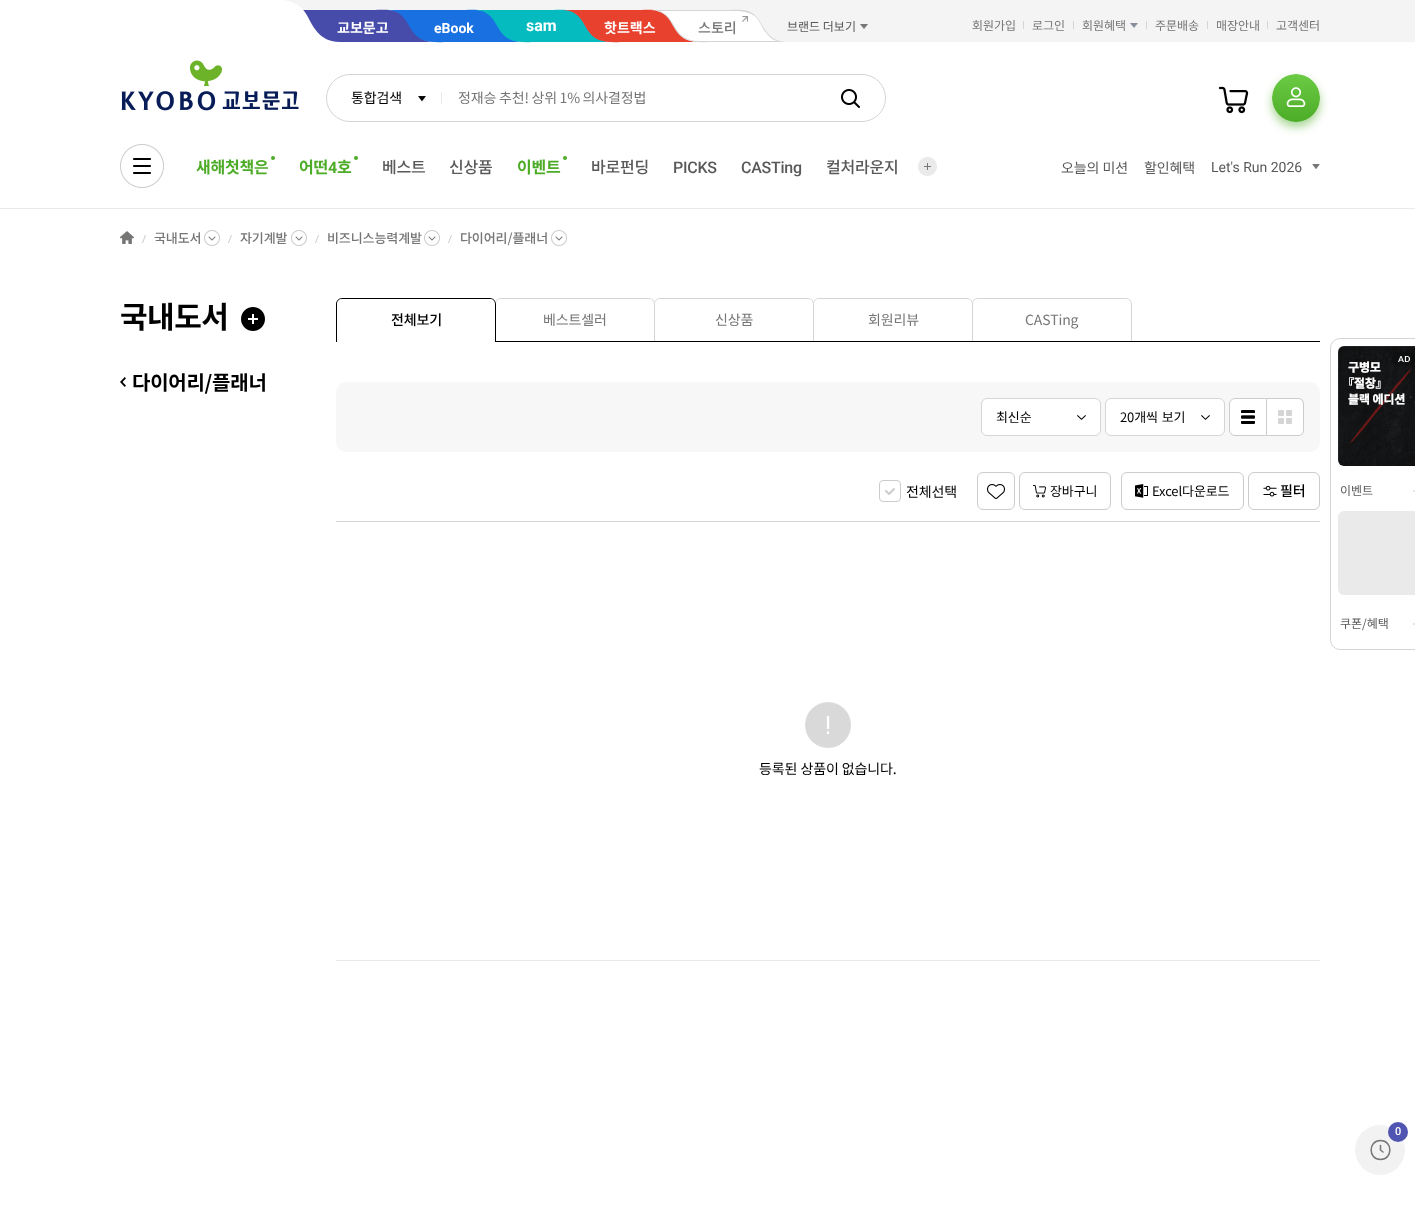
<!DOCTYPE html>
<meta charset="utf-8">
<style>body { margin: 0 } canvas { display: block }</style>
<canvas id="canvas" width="1415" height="1225"></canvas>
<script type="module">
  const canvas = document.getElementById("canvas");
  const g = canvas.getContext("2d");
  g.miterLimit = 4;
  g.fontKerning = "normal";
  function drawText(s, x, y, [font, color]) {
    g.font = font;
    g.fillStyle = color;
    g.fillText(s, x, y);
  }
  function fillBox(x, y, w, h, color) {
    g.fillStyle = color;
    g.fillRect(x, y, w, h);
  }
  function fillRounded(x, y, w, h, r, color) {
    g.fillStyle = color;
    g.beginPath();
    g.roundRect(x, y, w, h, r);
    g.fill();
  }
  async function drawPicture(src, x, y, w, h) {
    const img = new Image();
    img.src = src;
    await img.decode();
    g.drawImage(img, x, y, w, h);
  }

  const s1 = ["bold 14px Noto Sans KR", "#FFFFFF"];
  const s2 = ["bold 14px Roboto", "#FFFFFF"];
  const s3 = ["bold 16px Roboto", "#FFFFFF"];
  const s4 = ["500 14px Noto Sans KR", "#767676"];
  const s5 = ["12px Noto Sans KR", "#595959"];
  const s6 = ["12px Noto Sans KR", "#767676"];
  const s7 = ["14px Noto Sans KR", "#000000"];
  const s8 = ["14px Noto Sans KR", "#767676"];
  const s9 = ["bold 16px Noto Sans KR", "#4DAC27"];
  const s10 = ["bold 16px Roboto", "#4DAC27"];
  const s11 = ["500 16px Noto Sans KR", "#595959"];
  const s12 = ["500 16px Roboto", "#595959"];
  const s13 = ["14px Noto Sans KR", "#595959"];
  const s14 = ["14px Roboto", "#595959"];
  const s15 = ["500 13px Noto Sans KR", "#767676"];
  const s16 = ["bold 30px Noto Sans KR", "#000000"];
  const s17 = ["bold 20px Noto Sans KR", "#000000"];
  const s18 = ["500 14px Noto Sans KR", "#000000"];
  const s19 = ["13px Noto Sans KR", "#000000"];
  const s20 = ["500 11px Roboto", "#FFFFFF"];

  fillBox(0, 0, 1415, 1225, "#FFFFFF");
  fillBox(0, 208, 1415, 1, "#EAEAEA");
  fillBox(282, 0, 1133, 42, "#F4F4F4");
  g.fillStyle = "#474BAA";
  g.beginPath();
  g.moveTo(303, 10);
  g.lineTo(303, 42);
  g.lineTo(435, 42);
  g.bezierCurveTo(410, 42, 415, 19, 398, 12);
  g.bezierCurveTo(391, 9, 380, 10, 373, 10);
  g.closePath();
  g.fill();
  drawText("교보문고", 337, 33, s1);
  await drawPicture("pic1.png", 120, 0, 220, 42);
  g.fillStyle = "#1970E1";
  g.beginPath();
  g.moveTo(523, 42);
  g.lineTo(449, 42);
  g.bezierCurveTo(442, 42, 430, 43, 423, 40);
  g.bezierCurveTo(406, 33, 410, 11, 387, 10);
  g.lineTo(460, 10);
  g.bezierCurveTo(467, 10, 477, 9, 484, 11);
  g.bezierCurveTo(493, 15, 495, 21, 500, 28);
  g.bezierCurveTo(505, 37, 513, 42, 523, 42);
  g.closePath();
  g.fill();
  drawText("eBook", 434, 33, s2);
  g.fillStyle = "#06BBC0";
  g.beginPath();
  g.moveTo(611, 42);
  g.lineTo(537, 42);
  g.bezierCurveTo(530, 42, 518, 43, 511, 40);
  g.bezierCurveTo(494, 33, 498, 11, 475, 10);
  g.lineTo(548, 10);
  g.bezierCurveTo(555, 10, 565, 9, 572, 11);
  g.bezierCurveTo(581, 15, 583, 21, 588, 28);
  g.bezierCurveTo(593, 37, 601, 42, 611, 42);
  g.closePath();
  g.fill();
  drawText("sam", 526, 31, s3);
  g.fillStyle = "#E8422F";
  g.beginPath();
  g.moveTo(699, 42);
  g.lineTo(625, 42);
  g.bezierCurveTo(618, 42, 606, 43, 599, 40);
  g.bezierCurveTo(582, 33, 586, 11, 563, 10);
  g.lineTo(636, 10);
  g.bezierCurveTo(643, 10, 653, 9, 660, 11);
  g.bezierCurveTo(669, 15, 671, 21, 676, 28);
  g.bezierCurveTo(681, 37, 689, 42, 699, 42);
  g.closePath();
  g.fill();
  drawText("핫트랙스", 604, 33, s1);
  g.fillStyle = "#D5D5D5";
  g.beginPath();
  g.moveTo(787, 42);
  g.lineTo(713, 42);
  g.bezierCurveTo(706, 42, 694, 43, 687, 40);
  g.bezierCurveTo(670, 33, 674, 11, 651, 10);
  g.lineTo(724, 10);
  g.bezierCurveTo(731, 10, 741, 9, 748, 11);
  g.bezierCurveTo(757, 15, 759, 21, 764, 28);
  g.bezierCurveTo(769, 37, 777, 42, 787, 42);
  g.closePath();
  g.fill();
  g.fillStyle = "#FFFFFF";
  g.beginPath();
  g.moveTo(773, 39);
  g.lineTo(779, 41);
  g.lineTo(698, 41);
  g.bezierCurveTo(688, 42, 680, 37, 675, 28);
  g.bezierCurveTo(671, 21, 668, 15, 661, 12);
  g.lineTo(657, 11);
  g.lineTo(725, 11);
  g.bezierCurveTo(739, 11, 753, 9, 761, 23);
  g.bezierCurveTo(764, 29, 767, 35, 773, 39);
  g.closePath();
  g.fill();
  g.save();
  g.beginPath();
  g.moveTo(787, 42);
  g.lineTo(698, 42);
  g.bezierCurveTo(695.5, 42, 693, 42, 690.5, 41);
  g.bezierCurveTo(688, 40.5, 685.5, 39.5, 683.5, 38.5);
  g.bezierCurveTo(679.5, 35.5, 675.5, 30.5, 671.5, 23);
  g.bezierCurveTo(669.5, 18.5, 665.5, 14.5, 660.5, 12.5);
  g.bezierCurveTo(657.5, 11, 654.5, 10, 651, 10);
  g.lineTo(739.5, 10);
  g.bezierCurveTo(743, 10, 746, 10.5, 749, 12);
  g.bezierCurveTo(751.5, 13, 753.5, 14, 755.5, 16);
  g.bezierCurveTo(758, 18, 760, 20.5, 761, 23);
  g.bezierCurveTo(765, 30.5, 768.5, 35.5, 773, 38.5);
  g.bezierCurveTo(775, 39.5, 777.5, 40.5, 780, 41);
  g.bezierCurveTo(782, 42, 784.5, 42, 787, 42);
  g.closePath();
  g.clip();
  g.beginPath();
  g.moveTo(773, 39);
  g.lineTo(779, 41.5);
  g.lineTo(698, 41.5);
  g.bezierCurveTo(687.5, 41.5, 680.5, 37, 675, 28);
  g.bezierCurveTo(671, 21.5, 668.5, 15.5, 661, 12);
  g.lineTo(657, 10.5);
  g.lineTo(725.5, 10.5);
  g.bezierCurveTo(739, 10.5, 753, 8.5, 760.5, 23);
  g.bezierCurveTo(763.5, 29, 767, 35, 773, 39);
  g.closePath();
  g.strokeStyle = "#D5D5D5";
  g.stroke();
  g.restore();
  await drawPicture("pic2.png", 742, 16, 6, 6);
  drawText("스토리", 698, 33, s4);
  drawText("브랜드 더보기", 787, 31, s5);
  await drawPicture("pic3.png", 860, 24, 8, 5);
  drawText("회원가입", 972, 30, s6);
  fillBox(1023, 21, 1, 8, "#D5D5D5");
  drawText("로그인", 1032, 30, s6);
  fillBox(1073, 21, 1, 8, "#D5D5D5");
  drawText("회원혜택", 1082, 30, s6);
  await drawPicture("pic4.png", 1130, 23, 8, 5);
  fillBox(1146, 21, 1, 8, "#D5D5D5");
  drawText("주문배송", 1155, 30, s6);
  fillBox(1207, 21, 1, 8, "#D5D5D5");
  drawText("매장안내", 1216, 30, s6);
  fillBox(1267, 21, 1, 8, "#D5D5D5");
  drawText("고객센터", 1276, 30, s6);
  await drawPicture("pic5.png", 121, 60, 178, 51);
  g.beginPath();
  g.roundRect(326.5, 74.5, 559, 47, 23.5);
  g.strokeStyle = "#D5D5D5";
  g.stroke();
  g.letterSpacing = "-0.1px";
  drawText("통합검색", 351, 103, s7);
  await drawPicture("pic6.png", 418, 96, 8, 6);
  fillBox(441, 92, 1, 12, "#EAEAEA");
  g.wordSpacing = "-0.5px";
  drawText("정재승 추천! 상위 1% 의사결정법", 458, 103, s8);
  await drawPicture("pic7.png", 841, 89, 19, 19);
  await drawPicture("pic8.png", 1218, 86, 31, 28);
  g.fillStyle = "rgba(77, 172, 39, 0.5)";
  g.filter = "blur(5px)";
  g.beginPath();
  g.roundRect(1272, 79, 48, 48, 24);
  g.fill();
  g.filter = "none";
  await drawPicture("pic9.png", 1272, 74, 48, 48);
  await drawPicture("pic10.png", 120, 144, 44, 44);
  g.fillStyle = "#4DAC27";
  g.beginPath();
  g.arc(273, 158, 2, 0, Math.PI * 2);
  g.fill();
  g.letterSpacing = "-0.25px";
  g.wordSpacing = "0px";
  drawText("새해첫책은", 196, 173, s9);
  g.beginPath();
  g.arc(356, 158, 2, 0, Math.PI * 2);
  g.fill();
  drawText("어떤", 299, 173, s9);
  drawText("4", 328, 173, s10);
  drawText("호", 337, 173, s9);
  drawText("베스트", 382, 173, s11);
  drawText("신상품", 449, 173, s11);
  g.fillStyle = "#4DAC27";
  g.beginPath();
  g.arc(565, 158, 2, 0, Math.PI * 2);
  g.fill();
  drawText("이벤트", 517, 173, s9);
  drawText("바로펀딩", 591, 173, s11);
  drawText("PICKS", 673, 173, s12);
  drawText("CASTing", 741, 173, s12);
  drawText("컬처라운지", 826, 173, s11);
  await drawPicture("pic11.png", 918, 157, 19, 19);
  g.letterSpacing = "-0.1px";
  drawText("오늘의 미션", 1061, 173, s13);
  drawText("할인혜택", 1144, 173, s13);
  g.letterSpacing = "0px";
  drawText("Let's Run 2026", 1211, 172, s14);
  await drawPicture("pic12.png", 1312, 164, 8, 5);
  await drawPicture("pic13.png", 120, 231, 14, 13);
  await drawPicture("pic14.png", 142, 235, 4, 8);
  g.letterSpacing = "-0.1px";
  drawText("국내도서", 154, 243, s15);
  await drawPicture("pic15.png", 204, 230, 16, 16);
  await drawPicture("pic14.png", 228, 235, 4, 8);
  drawText("자기계발", 240, 243, s15);
  await drawPicture("pic15.png", 291, 230, 16, 16);
  await drawPicture("pic14.png", 315, 235, 4, 8);
  drawText("비즈니스능력계발", 327, 243, s15);
  await drawPicture("pic15.png", 424, 230, 16, 16);
  await drawPicture("pic14.png", 448, 235, 4, 8);
  drawText("다이어리/플래너", 460, 243, s15);
  await drawPicture("pic15.png", 551, 230, 16, 16);
  g.letterSpacing = "-0.5px";
  drawText("국내도서", 120, 328, s16);
  await drawPicture("pic16.png", 241, 307, 24, 24);
  await drawPicture("pic17.png", 120, 377, 6, 10);
  g.letterSpacing = "-0.25px";
  drawText("다이어리/플래너", 132, 390, s17);
  fillBox(336, 341, 984, 1, "#000000");
  g.fillStyle = "#D5D5D5";
  g.beginPath();
  g.moveTo(501, 298);
  g.lineTo(649, 298);
  g.bezierCurveTo(652, 298, 655, 301, 655, 304);
  g.lineTo(655, 341);
  g.lineTo(495, 341);
  g.lineTo(495, 304);
  g.bezierCurveTo(495, 301, 498, 298, 501, 298);
  g.closePath();
  g.moveTo(501, 299);
  g.lineTo(649, 299);
  g.bezierCurveTo(652, 299, 654, 301, 654, 304);
  g.lineTo(654, 341);
  g.lineTo(496, 341);
  g.lineTo(496, 304);
  g.bezierCurveTo(496, 301, 498, 299, 501, 299);
  g.closePath();
  g.fill("evenodd");
  g.fillStyle = "#FFFFFF";
  g.beginPath();
  g.roundRect(336, 298, 160, 43, [6, 6, 0, 0]);
  g.fill();
  g.fillStyle = "#000000";
  g.beginPath();
  g.moveTo(342, 298);
  g.lineTo(490, 298);
  g.bezierCurveTo(493, 298, 496, 301, 496, 304);
  g.lineTo(496, 341);
  g.lineTo(336, 341);
  g.lineTo(336, 304);
  g.bezierCurveTo(336, 301, 339, 298, 342, 298);
  g.closePath();
  g.moveTo(342, 299);
  g.lineTo(490, 299);
  g.bezierCurveTo(493, 299, 495, 301, 495, 304);
  g.lineTo(495, 341);
  g.lineTo(337, 341);
  g.lineTo(337, 304);
  g.bezierCurveTo(337, 301, 339, 299, 342, 299);
  g.closePath();
  g.fill("evenodd");
  g.letterSpacing = "-0.1px";
  drawText("전체보기", 391, 325, s18);
  fillBox(337, 341, 158, 1, "#FFFFFF");
  drawText("베스트셀러", 543, 325, s8);
  g.fillStyle = "#FFFFFF";
  g.beginPath();
  g.roundRect(654, 298, 160, 43, [6, 6, 0, 0]);
  g.fill();
  g.fillStyle = "#D5D5D5";
  g.beginPath();
  g.moveTo(660, 298);
  g.lineTo(808, 298);
  g.bezierCurveTo(811, 298, 814, 301, 814, 304);
  g.lineTo(814, 341);
  g.lineTo(654, 341);
  g.lineTo(654, 304);
  g.bezierCurveTo(654, 301, 657, 298, 660, 298);
  g.closePath();
  g.moveTo(660, 299);
  g.lineTo(808, 299);
  g.bezierCurveTo(811, 299, 813, 301, 813, 304);
  g.lineTo(813, 341);
  g.lineTo(655, 341);
  g.lineTo(655, 304);
  g.bezierCurveTo(655, 301, 657, 299, 660, 299);
  g.closePath();
  g.fill("evenodd");
  drawText("신상품", 715, 325, s8);
  g.fillStyle = "#FFFFFF";
  g.beginPath();
  g.roundRect(813, 298, 160, 43, [6, 6, 0, 0]);
  g.fill();
  g.fillStyle = "#D5D5D5";
  g.beginPath();
  g.moveTo(819, 298);
  g.lineTo(967, 298);
  g.bezierCurveTo(970, 298, 973, 301, 973, 304);
  g.lineTo(973, 341);
  g.lineTo(813, 341);
  g.lineTo(813, 304);
  g.bezierCurveTo(813, 301, 816, 298, 819, 298);
  g.closePath();
  g.moveTo(819, 299);
  g.lineTo(967, 299);
  g.bezierCurveTo(970, 299, 972, 301, 972, 304);
  g.lineTo(972, 341);
  g.lineTo(814, 341);
  g.lineTo(814, 304);
  g.bezierCurveTo(814, 301, 816, 299, 819, 299);
  g.closePath();
  g.fill("evenodd");
  drawText("회원리뷰", 868, 325, s8);
  g.fillStyle = "#FFFFFF";
  g.beginPath();
  g.roundRect(972, 298, 160, 43, [6, 6, 0, 0]);
  g.fill();
  g.fillStyle = "#D5D5D5";
  g.beginPath();
  g.moveTo(978, 298);
  g.lineTo(1126, 298);
  g.bezierCurveTo(1129, 298, 1132, 301, 1132, 304);
  g.lineTo(1132, 341);
  g.lineTo(972, 341);
  g.lineTo(972, 304);
  g.bezierCurveTo(972, 301, 975, 298, 978, 298);
  g.closePath();
  g.moveTo(978, 299);
  g.lineTo(1126, 299);
  g.bezierCurveTo(1129, 299, 1131, 301, 1131, 304);
  g.lineTo(1131, 341);
  g.lineTo(973, 341);
  g.lineTo(973, 304);
  g.bezierCurveTo(973, 301, 975, 299, 978, 299);
  g.closePath();
  g.fill("evenodd");
  drawText("CASTing", 1025, 325, s8);
  fillRounded(336, 382, 984, 70, 10, "#F7F7F7");
  g.fillStyle = "#FFFFFF";
  g.beginPath();
  g.roundRect(981.5, 398.5, 119, 37, 5.5);
  g.fill();
  g.stroke();
  drawText("최신순", 996, 422, s19);
  await drawPicture("pic18.png", 1077, 415, 9, 5);
  g.fillStyle = "#FFFFFF";
  g.beginPath();
  g.roundRect(1105.5, 398.5, 119, 37, 5.5);
  g.fill();
  g.stroke();
  g.wordSpacing = "1px";
  drawText("20개씩 보기", 1120, 422, s19);
  await drawPicture("pic18.png", 1201, 415, 9, 5);
  g.fillStyle = "#FFFFFF";
  g.beginPath();
  g.roundRect(1229.5, 398.5, 37, 37, [5.5, 0, 0, 5.5]);
  g.fill();
  g.strokeStyle = "#CCCCCC";
  g.stroke();
  await drawPicture("pic19.png", 1241, 410, 14, 14);
  g.beginPath();
  g.roundRect(1267, 398, 37, 38, [0, 6, 6, 0]);
  g.fill();
  g.fillStyle = "#CCCCCC";
  g.beginPath();
  g.moveTo(1267, 398);
  g.lineTo(1298, 398);
  g.bezierCurveTo(1301.5, 398, 1304, 400.5, 1304, 404);
  g.lineTo(1304, 430);
  g.bezierCurveTo(1304, 433.5, 1301.5, 436, 1298, 436);
  g.lineTo(1267, 436);
  g.closePath();
  g.moveTo(1267, 399);
  g.lineTo(1298, 399);
  g.bezierCurveTo(1301, 399, 1303, 401, 1303, 404);
  g.lineTo(1303, 430);
  g.bezierCurveTo(1303, 433, 1301, 435, 1298, 435);
  g.lineTo(1267, 435);
  g.closePath();
  g.fill("evenodd");
  await drawPicture("pic20.png", 1278, 410, 14, 14);
  g.beginPath();
  g.roundRect(879.5, 480.5, 21, 21, 3.5);
  g.stroke();
  g.wordSpacing = "0px";
  drawText("전체선택", 906, 497, s7);
  await drawPicture("pic21.png", 885, 488, 10, 7);
  g.beginPath();
  g.roundRect(977.5, 472.5, 37, 37, 5.5);
  g.stroke();
  await drawPicture("pic22.png", 987, 484, 18, 15);
  g.beginPath();
  g.roundRect(1019.5, 472.5, 91, 37, 5.5);
  g.stroke();
  await drawPicture("pic23.png", 1033, 485, 13, 13);
  drawText("장바구니", 1050, 496, s19);
  g.beginPath();
  g.roundRect(1121.5, 472.5, 122, 37, 5.5);
  g.stroke();
  await drawPicture("pic24.png", 1135, 484, 13, 14);
  drawText("Excel다운로드", 1152, 496, s19);
  g.beginPath();
  g.roundRect(1248.5, 472.5, 71, 37, 5.5);
  g.stroke();
  await drawPicture("pic25.png", 1263, 485, 14, 12);
  drawText("필터", 1280, 496, s18);
  fillBox(336, 521, 984, 1, "#D5D5D5");
  fillBox(336, 960, 984, 1, "#EAEAEA");
  await drawPicture("pic26.png", 805, 702, 46, 46);
  drawText("등록된 상품이 없습니다.", 759, 774, s7);
  g.beginPath();
  g.roundRect(1330.5, 338.5, 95, 311, 9.5);
  g.strokeStyle = "#D5D5D5";
  g.stroke();
  await drawPicture("pic27.png", 1338, 346, 77, 120);
  g.letterSpacing = "0px";
  drawText("이벤트", 1340, 495, s5);
  fillBox(1413, 490, 2, 2, "#E6E6E6");
  fillRounded(1338, 511, 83, 84, 6, "#EAEAEA");
  drawText("쿠폰/혜택", 1340, 628, s5);
  fillBox(1413, 623, 2, 2, "#E6E6E6");
  g.fillStyle = "#F2F2F2";
  g.beginPath();
  g.arc(1380, 1150, 25, 0, Math.PI * 2);
  g.fill();
  g.beginPath();
  g.moveTo(1380.5, 1159.5);
  g.bezierCurveTo(1393, 1159.5, 1393, 1140.5, 1380.5, 1140.5);
  g.bezierCurveTo(1368, 1140.5, 1368, 1159.5, 1380.5, 1159.5);
  g.closePath();
  g.strokeStyle = "#767676";
  g.lineWidth = 1.5;
  g.stroke();
  g.fillStyle = "#5055B1";
  g.beginPath();
  g.arc(1398, 1132, 10, 0, Math.PI * 2);
  g.fill();
  drawText("0", 1395, 1135, s20);
  g.beginPath();
  g.moveTo(1380.5, 1145.5);
  g.lineTo(1380.5, 1150);
  g.lineTo(1383, 1152);
  g.lineCap = "round";
  g.stroke();
</script>
